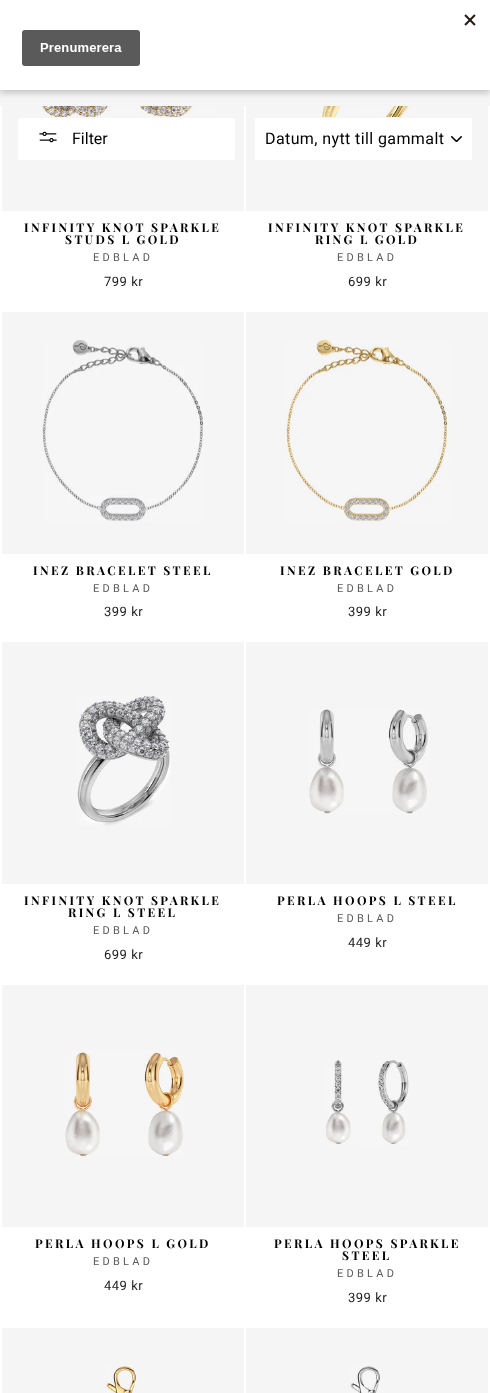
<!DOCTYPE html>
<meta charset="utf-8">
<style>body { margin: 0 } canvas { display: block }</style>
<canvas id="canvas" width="490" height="1393"></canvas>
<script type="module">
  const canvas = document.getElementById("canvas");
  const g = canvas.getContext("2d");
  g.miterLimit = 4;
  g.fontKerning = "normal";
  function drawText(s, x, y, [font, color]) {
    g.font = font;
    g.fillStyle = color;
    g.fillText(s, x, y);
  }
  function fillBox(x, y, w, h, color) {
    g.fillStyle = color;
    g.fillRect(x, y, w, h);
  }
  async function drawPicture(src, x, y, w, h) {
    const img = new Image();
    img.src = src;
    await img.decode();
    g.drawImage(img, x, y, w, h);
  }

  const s1 = ["16px Roboto", "#000000"];
  const s2 = ["bold 12px Playfair Display", "#000000"];
  const s3 = ["11px Roboto", "#595959"];
  const s4 = ["13px Roboto", "#1C1D1D"];

  fillBox(0, 0, 490, 1393, "#FFFFFF");
  fillBox(0, 90, 490, 16, "#F5F5F5");
  g.fillStyle = "rgba(0, 0, 0, 0.2)";
  g.filter = "blur(3px)";
  g.beginPath();
  g.rect(0, 3, 490, 90);
  g.fill();
  g.filter = "none";
  fillBox(0, 0, 490, 90, "#FFFFFF");
  await drawPicture("pic1.png", 22, 14, 454, 52);
  fillBox(2, 106, 242, 105, "#F5F5F5");
  g.fillStyle = "#FFFFFF";
  g.beginPath();
  g.roundRect(17.5, 117.5, 218, 43, 2.5);
  g.fill();
  g.strokeStyle = "#F5F5F5";
  g.stroke();
  await drawPicture("pic2.png", 39, 131, 18, 12);
  drawText("Filter", 72, 144, s1);
  fillBox(246, 106, 242, 105, "#F5F5F5");
  fillBox(255, 118, 217, 42, "#FFFFFF");
  await drawPicture("pic3.png", 451, 136, 11, 6);
  g.letterSpacing = "0.4px";
  drawText("Datum, nytt till gammalt", 265, 144, s1);
  await drawPicture("pic4.png", 39, 106, 178, 11);
  g.letterSpacing = "2.4px";
  drawText("INFINITY KNOT SPARKLE", 24, 232, s2);
  drawText("STUDS L GOLD", 65, 244, s2);
  g.letterSpacing = "3.25px";
  drawText("EDBLAD", 93, 261, s3);
  g.letterSpacing = "0.5px";
  drawText("799 kr", 104, 286, s4);
  await drawPicture("pic5.png", 319, 106, 99, 11);
  g.letterSpacing = "2.4px";
  drawText("INFINITY KNOT SPARKLE", 268, 232, s2);
  drawText("RING L GOLD", 315, 244, s2);
  g.letterSpacing = "3.25px";
  drawText("EDBLAD", 337, 261, s3);
  g.letterSpacing = "0.5px";
  drawText("699 kr", 348, 286, s4);
  fillBox(2, 312, 242, 242, "#F5F5F5");
  await drawPicture("pic6.png", 42, 339, 162, 183);
  g.letterSpacing = "2.4px";
  drawText("INEZ BRACELET STEEL", 33, 575, s2);
  g.letterSpacing = "3.25px";
  drawText("EDBLAD", 93, 592, s3);
  g.letterSpacing = "0.5px";
  drawText("399 kr", 104, 616, s4);
  fillBox(246, 312, 242, 242, "#F5F5F5");
  await drawPicture("pic7.png", 284, 339, 166, 183);
  g.letterSpacing = "2.4px";
  drawText("INEZ BRACELET GOLD", 280, 575, s2);
  g.letterSpacing = "3.25px";
  drawText("EDBLAD", 337, 592, s3);
  g.letterSpacing = "0.5px";
  drawText("399 kr", 348, 616, s4);
  fillBox(2, 642, 242, 242, "#F5F5F5");
  await drawPicture("pic8.png", 77, 696, 94, 130);
  g.letterSpacing = "2.4px";
  drawText("INFINITY KNOT SPARKLE", 24, 905, s2);
  drawText("RING L STEEL", 68, 917, s2);
  g.letterSpacing = "3.25px";
  drawText("EDBLAD", 93, 934, s3);
  g.letterSpacing = "0.5px";
  drawText("699 kr", 104, 959, s4);
  fillBox(246, 642, 242, 242, "#F5F5F5");
  await drawPicture("pic9.png", 309, 709, 120, 105);
  g.letterSpacing = "2.4px";
  drawText("PERLA HOOPS L STEEL", 277, 905, s2);
  g.letterSpacing = "3.25px";
  drawText("EDBLAD", 337, 922, s3);
  g.letterSpacing = "0.5px";
  drawText("449 kr", 348, 947, s4);
  fillBox(2, 985, 242, 242, "#F5F5F5");
  await drawPicture("pic10.png", 65, 1050, 120, 107);
  g.letterSpacing = "2.4px";
  drawText("PERLA HOOPS L GOLD", 35, 1248, s2);
  g.letterSpacing = "3.25px";
  drawText("EDBLAD", 93, 1265, s3);
  g.letterSpacing = "0.5px";
  drawText("449 kr", 104, 1290, s4);
  fillBox(246, 985, 242, 242, "#F5F5F5");
  await drawPicture("pic11.png", 326, 1060, 83, 86);
  g.letterSpacing = "2.4px";
  drawText("PERLA HOOPS SPARKLE", 274, 1248, s2);
  drawText("STEEL", 342, 1260, s2);
  g.letterSpacing = "3.25px";
  drawText("EDBLAD", 337, 1277, s3);
  g.letterSpacing = "0.5px";
  drawText("399 kr", 348, 1302, s4);
  fillBox(2, 1328, 242, 65, "#F5F5F5");
  await drawPicture("pic12.png", 106, 1365, 31, 28);
  fillBox(246, 1328, 242, 65, "#F5F5F5");
  await drawPicture("pic13.png", 350, 1366, 30, 27);
</script>
